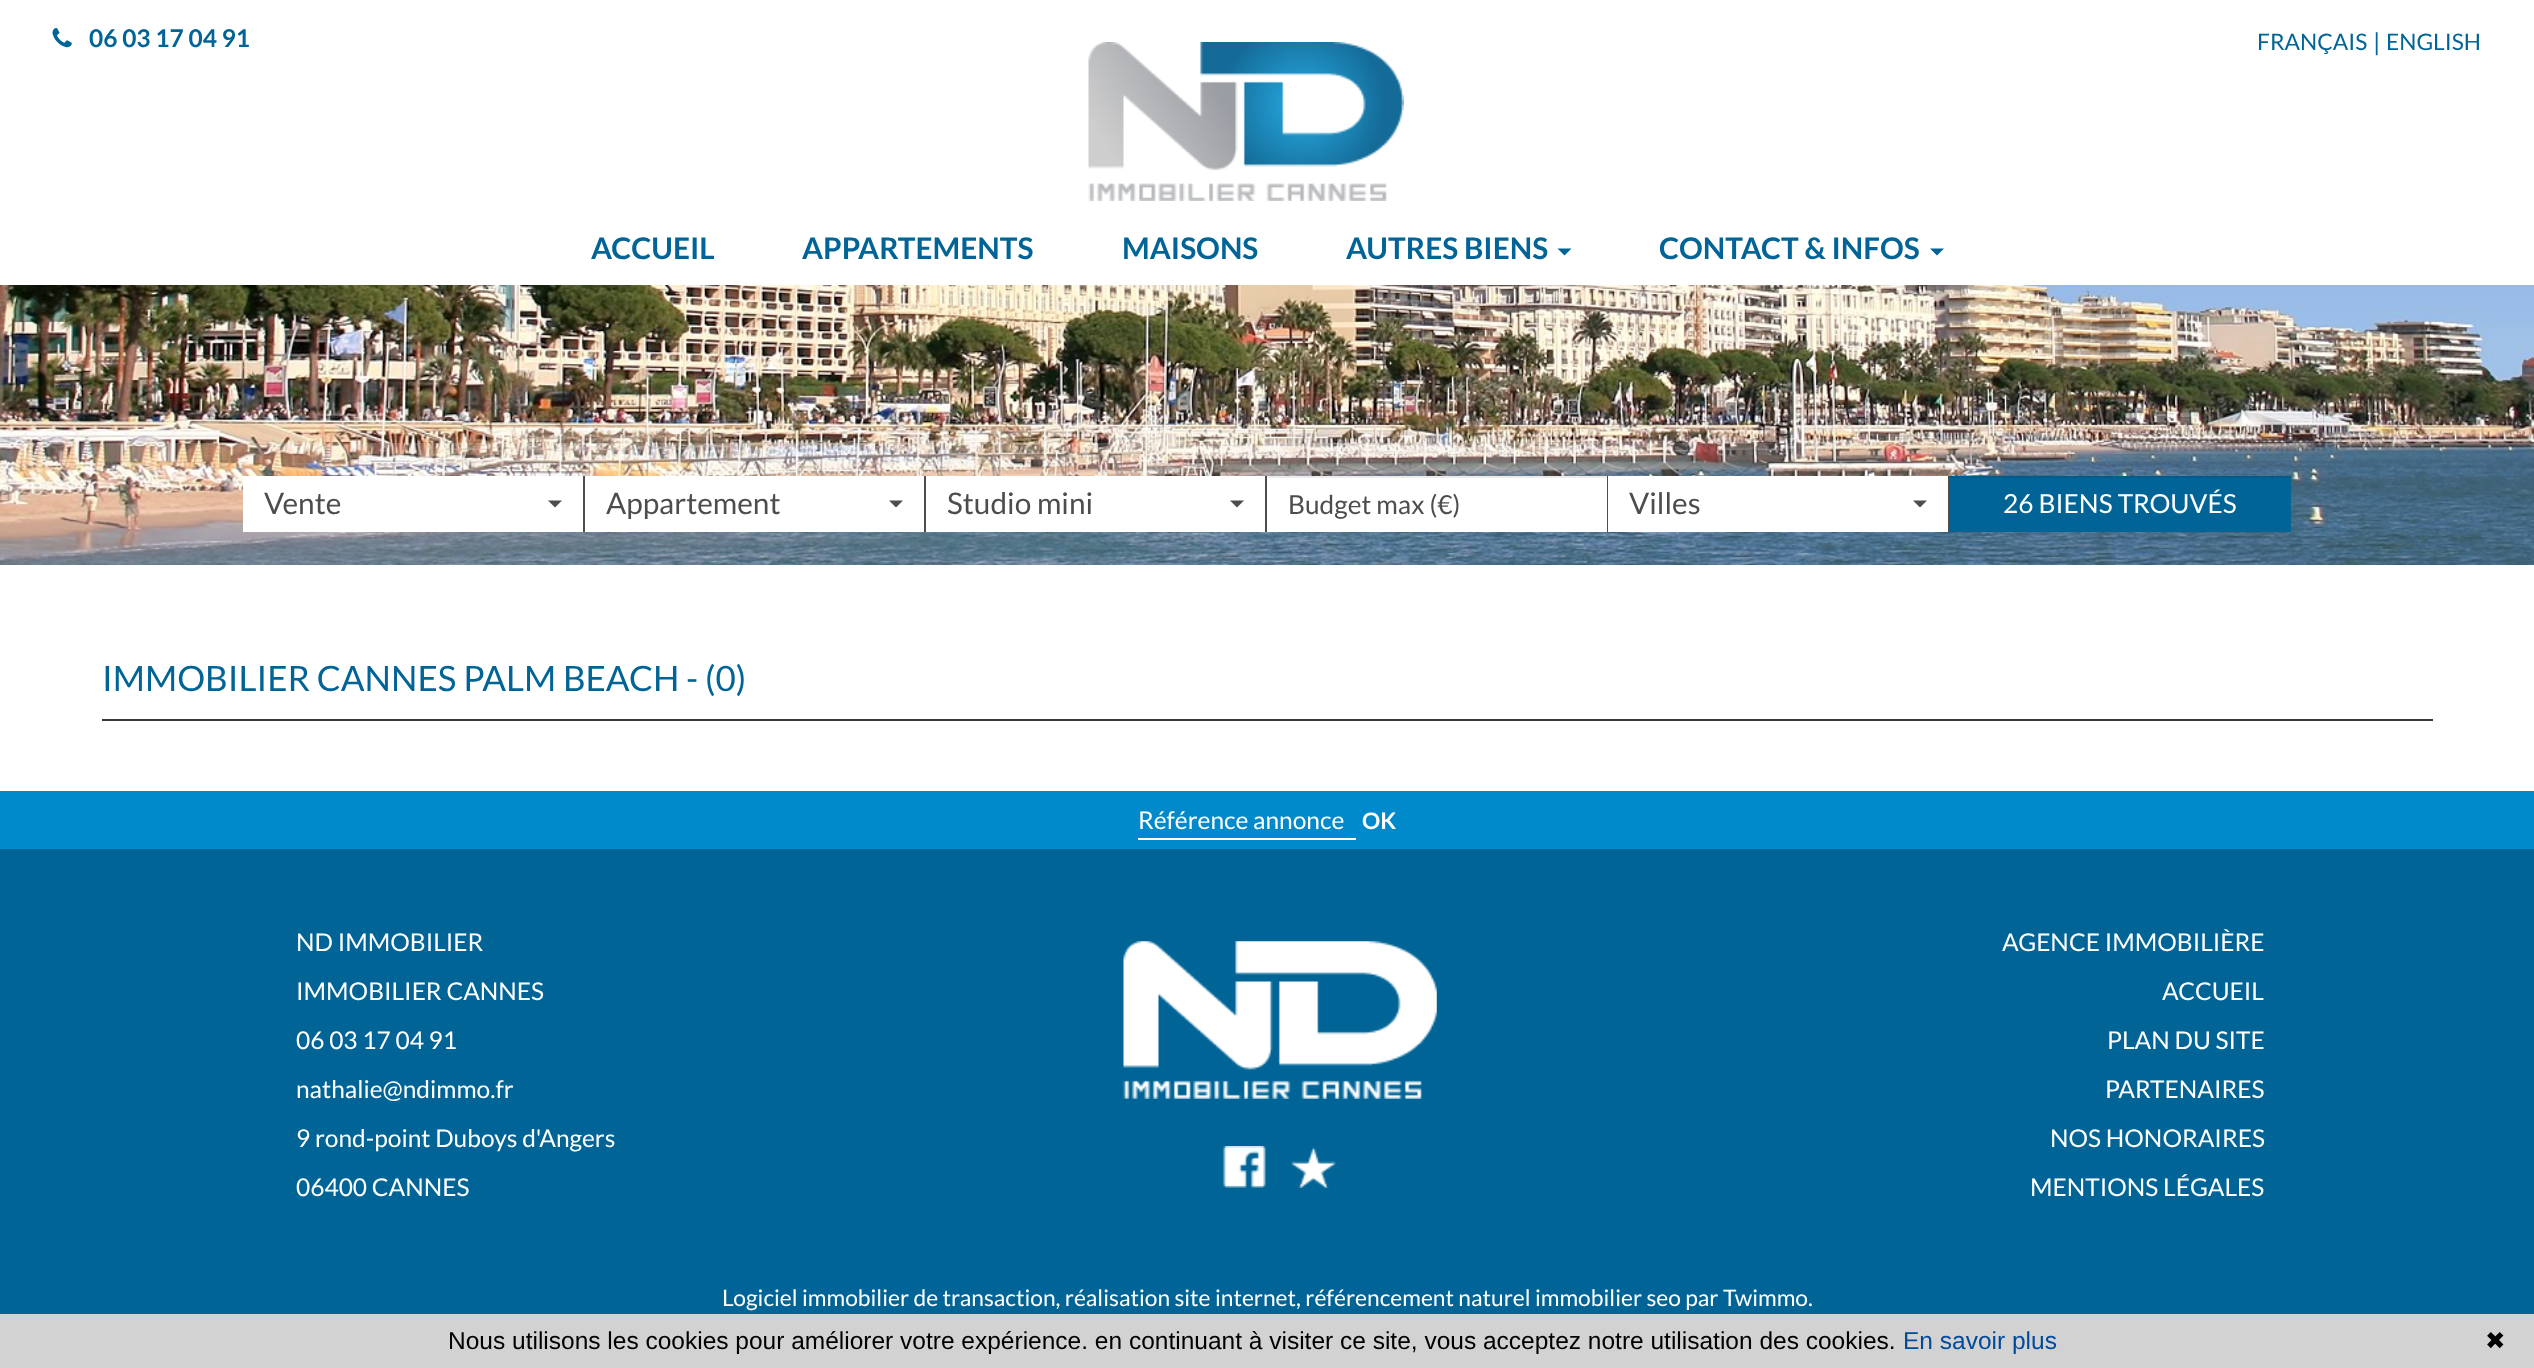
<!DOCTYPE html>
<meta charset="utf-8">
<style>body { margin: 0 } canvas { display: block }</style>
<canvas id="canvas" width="2534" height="1368"></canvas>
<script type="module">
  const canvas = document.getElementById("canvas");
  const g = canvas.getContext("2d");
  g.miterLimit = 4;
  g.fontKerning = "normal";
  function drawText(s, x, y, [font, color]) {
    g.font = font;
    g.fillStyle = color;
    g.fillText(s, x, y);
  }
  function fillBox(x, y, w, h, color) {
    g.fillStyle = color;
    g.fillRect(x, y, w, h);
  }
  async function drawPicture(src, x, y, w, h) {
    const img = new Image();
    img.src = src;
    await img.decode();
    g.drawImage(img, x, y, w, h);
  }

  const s1 = ["bold 24.5px Lato", "#006496"];
  const s2 = ["22.75px Lato", "#006496"];
  const s3 = ["24.5px Lato", "#006496"];
  const s4 = ["bold 29.75px Lato", "#006496"];
  const s5 = ["29.75px Lato", "#4F4D4C"];
  const s6 = ["26.25px Lato", "#4F4D4C"];
  const s7 = ["26.25px Lato", "#FFFFFF"];
  const s8 = ["35px Lato", "#006496"];
  const s9 = ["24.5px Lato", "#FFFFFF"];
  const s10 = ["bold 22.75px Lato", "#FFFFFF"];
  const s11 = ["22.75px Lato", "#FFFFFF"];
  const s12 = ["24.5px Liberation Sans", "#000000"];
  const s13 = ["24.5px Liberation Sans", "#004A9C"];
  const s14 = ["24.5px DejaVu Sans", "#000000"];

  fillBox(0, 0, 2534, 1368, "#FFFFFF");
  await drawPicture("pic1.png", 52, 28, 20, 20);
  drawText("06 03 17 04 91", 89, 47, s1);
  await drawPicture("pic2.png", 1088, 42, 316, 159);
  drawText("FRANÇAIS", 2257, 50, s2);
  drawText("|", 2373, 51, s3);
  drawText("ENGLISH", 2386, 50, s2);
  drawText("ACCUEIL", 591, 259, s4);
  drawText("APPARTEMENTS", 802, 259, s4);
  drawText("MAISONS", 1122, 259, s4);
  drawText("AUTRES BIENS", 1346, 259, s4);
  g.beginPath();
  g.moveTo(1557.5, 248.5);
  g.lineTo(1571.5, 248.5);
  g.lineTo(1564.5, 255.5);
  g.closePath();
  g.fill();
  drawText("CONTACT & INFOS", 1659, 259, s4);
  g.beginPath();
  g.moveTo(1930, 248.5);
  g.lineTo(1944, 248.5);
  g.lineTo(1937, 255.5);
  g.closePath();
  g.fill();
  await drawPicture("pic3.png", 0, 285, 2534, 280);
  fillBox(0, 443, 2534, 122, "rgba(255, 255, 255, 0.2)");
  fillBox(583, 476, 2, 56, "#4F4D4C");
  fillBox(243, 476, 340, 56, "#FFFFFF");
  drawText("Vente", 264, 514, s5);
  g.beginPath();
  g.moveTo(548, 500.5);
  g.lineTo(562, 500.5);
  g.lineTo(555, 507.5);
  g.closePath();
  g.fill();
  fillBox(924, 476, 2, 56, "#4F4D4C");
  fillBox(585, 476, 339, 56, "#FFFFFF");
  drawText("Appartement", 606, 514, s5);
  g.beginPath();
  g.moveTo(889, 500.5);
  g.lineTo(903, 500.5);
  g.lineTo(896, 507.5);
  g.closePath();
  g.fill();
  fillBox(1265, 476, 2, 56, "#4F4D4C");
  fillBox(926, 476, 339, 56, "#FFFFFF");
  drawText("Studio mini", 947, 514, s5);
  g.beginPath();
  g.moveTo(1230, 500.5);
  g.lineTo(1244, 500.5);
  g.lineTo(1237, 507.5);
  g.closePath();
  g.fill();
  fillBox(1607, 476, 1, 56, "#4F4D4C");
  fillBox(1267, 478, 340, 54, "#FFFFFF");
  fillBox(1267, 476, 340, 2, "#ECECEC");
  drawText("Budget max (€)", 1288, 514, s6);
  fillBox(1948, 476, 2, 56, "#4F4D4C");
  fillBox(1608, 476, 340, 56, "#FFFFFF");
  drawText("Villes", 1629, 514, s5);
  g.beginPath();
  g.moveTo(1913, 500.5);
  g.lineTo(1927, 500.5);
  g.lineTo(1920, 507.5);
  g.closePath();
  g.fill();
  fillBox(1950, 478, 341, 54, "#006496");
  fillBox(1950, 476, 341, 2, "#005D8B");
  drawText("26 BIENS TROUVÉS", 2003, 513, s7);
  drawText("IMMOBILIER CANNES PALM BEACH - (0)", 102, 691, s8);
  fillBox(102, 719, 2331, 2, "#383838");
  fillBox(0, 849, 2534, 465, "#006496");
  fillBox(0, 791, 2534, 58, "#008ACC");
  fillBox(1138, 838, 218, 2, "#FFFFFF");
  drawText("Référence annonce", 1138, 829, s9);
  drawText("OK", 1362, 829, s10);
  drawText("ND IMMOBILIER", 296, 951, s9);
  drawText("IMMOBILIER CANNES", 296, 1000, s9);
  drawText("06 03 17 04 91", 296, 1049, s9);
  drawText("nathalie@ndimmo.fr", 296, 1098, s9);
  drawText("9 rond-point Duboys d'Angers", 296, 1147, s9);
  drawText("06400 CANNES", 296, 1196, s9);
  await drawPicture("pic4.png", 1123, 941, 314, 158);
  await drawPicture("pic5.png", 1222, 1146, 44, 42);
  await drawPicture("pic6.png", 1291, 1147, 45, 41);
  drawText("AGENCE IMMOBILIÈRE", 2002, 951, s9);
  drawText("ACCUEIL", 2162, 1000, s9);
  drawText("PLAN DU SITE", 2107, 1049, s9);
  drawText("PARTENAIRES", 2105, 1098, s9);
  drawText("NOS HONORAIRES", 2050, 1147, s9);
  drawText("MENTIONS LÉGALES", 2030, 1196, s9);
  drawText("Logiciel immobilier de transaction, réalisation site internet, référencement naturel immobilier seo par Twimmo.", 722, 1306, s11);
  fillBox(0, 1314, 2534, 54, "#D2D2D2");
  drawText("Nous utilisons les cookies pour améliorer votre expérience. en continuant à visiter ce site, vous acceptez notre utilisation des cookies.", 448, 1349, s12);
  drawText("En savoir plus", 1903, 1349, s13);
  drawText("✖", 2485, 1349, s14);
</script>
